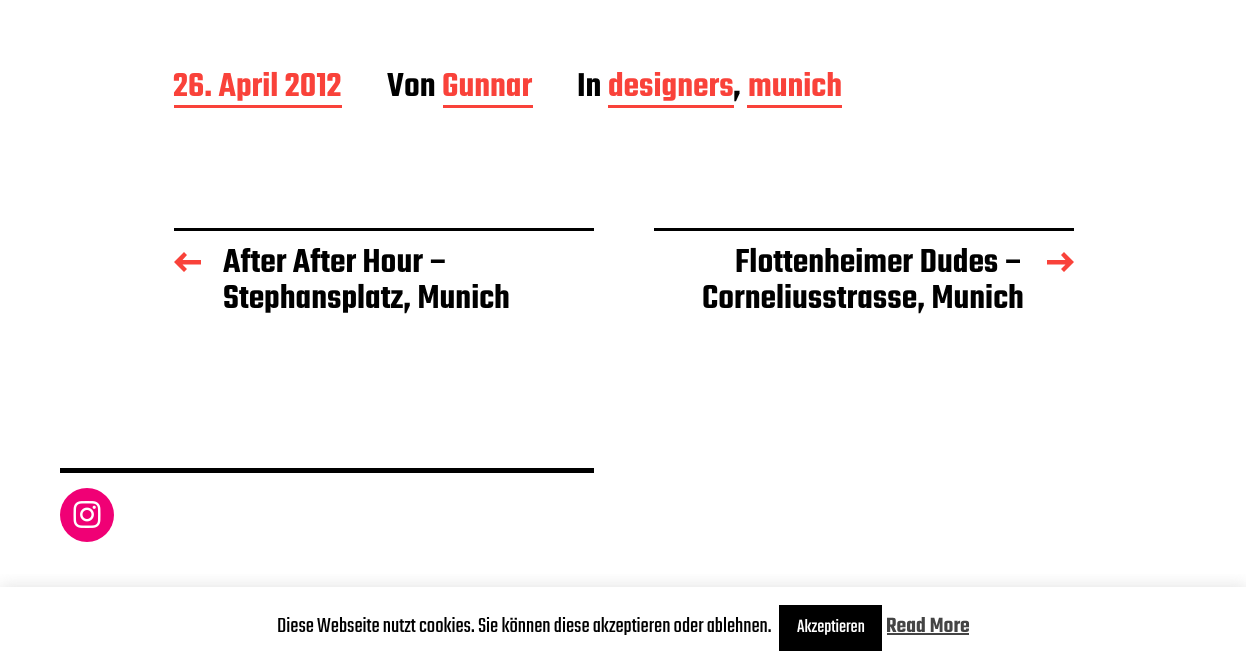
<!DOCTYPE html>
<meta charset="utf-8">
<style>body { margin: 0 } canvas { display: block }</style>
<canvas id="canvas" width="1246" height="669"></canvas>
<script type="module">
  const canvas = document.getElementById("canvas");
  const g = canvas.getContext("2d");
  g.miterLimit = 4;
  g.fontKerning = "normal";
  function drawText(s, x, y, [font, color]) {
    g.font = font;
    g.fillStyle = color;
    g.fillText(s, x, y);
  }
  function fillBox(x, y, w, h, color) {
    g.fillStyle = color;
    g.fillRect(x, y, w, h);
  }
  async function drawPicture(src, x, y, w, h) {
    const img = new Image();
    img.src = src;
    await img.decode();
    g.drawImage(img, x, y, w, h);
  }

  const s1 = ["600 36px Teko", "#F9423A"];
  const s2 = ["600 36px Teko", "#000000"];
  const s3 = ["22.5px Teko", "#000000"];
  const s4 = ["19.5px Teko", "#FFFFFF"];
  const s5 = ["600 22.5px Teko", "#444444"];

  fillBox(0, 0, 1246, 669, "#FFFFFF");
  fillBox(174, 105, 168, 3, "#F9423A");
  drawText("26. April 2012", 173, 96, s1);
  drawText("Von", 387, 96, s2);
  fillBox(443, 105, 90, 3, "#F9423A");
  drawText("Gunnar", 442, 96, s1);
  drawText("In", 577, 96, s2);
  fillBox(608, 105, 126, 3, "#F9423A");
  drawText("designers", 608, 96, s1);
  drawText(",", 733, 96, s2);
  fillBox(747, 105, 95, 3, "#F9423A");
  drawText("munich", 748, 96, s1);
  fillBox(174, 228, 420, 3, "#000000");
  g.fillStyle = "#F9423A";
  g.beginPath();
  g.moveTo(182.5, 260);
  g.lineTo(201, 260);
  g.lineTo(201, 264.5);
  g.lineTo(182.5, 264.5);
  g.lineTo(187, 269);
  g.lineTo(184, 272);
  g.lineTo(174, 262);
  g.lineTo(184, 252);
  g.lineTo(187, 255);
  g.closePath();
  g.fill("evenodd");
  drawText("After After Hour –", 223, 272, s2);
  drawText("Stephansplatz, Munich", 223, 308, s2);
  fillBox(654, 228, 420, 3, "#000000");
  drawText("Flottenheimer Dudes –", 735, 272, s2);
  drawText("Corneliusstrasse, Munich", 702, 308, s2);
  g.fillStyle = "#F9423A";
  g.beginPath();
  g.moveTo(1065.5, 264.5);
  g.lineTo(1047, 264.5);
  g.lineTo(1047, 260);
  g.lineTo(1065.5, 260);
  g.lineTo(1061, 255);
  g.lineTo(1064, 252);
  g.lineTo(1074, 262);
  g.lineTo(1064, 272);
  g.lineTo(1061, 269);
  g.closePath();
  g.fill("evenodd");
  fillBox(60, 468, 534, 5, "#000000");
  g.fillStyle = "#F00075";
  g.beginPath();
  g.arc(87, 515, 27, 0, Math.PI * 2);
  g.fill();
  await drawPicture("pic1.png", 73, 501, 28, 27);
  g.save();
  g.beginPath();
  g.rect(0, 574, 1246, 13);
  g.clip();
  g.fillStyle = "rgba(172, 171, 171, 0.3)";
  g.filter = "blur(7.5px)";
  g.beginPath();
  g.rect(0, 585, 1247, 83);
  g.fill();
  g.filter = "none";
  g.restore();
  drawText("Diese Webseite nutzt cookies. Sie können diese akzeptieren oder ablehnen.", 277, 632, s3);
  fillBox(779, 605, 103, 46, "#000000");
  drawText("Akzeptieren", 797, 632, s4);
  drawText("Read More", 886, 632, s5);
  fillBox(887, 633, 82, 2, "#444444");
</script>
